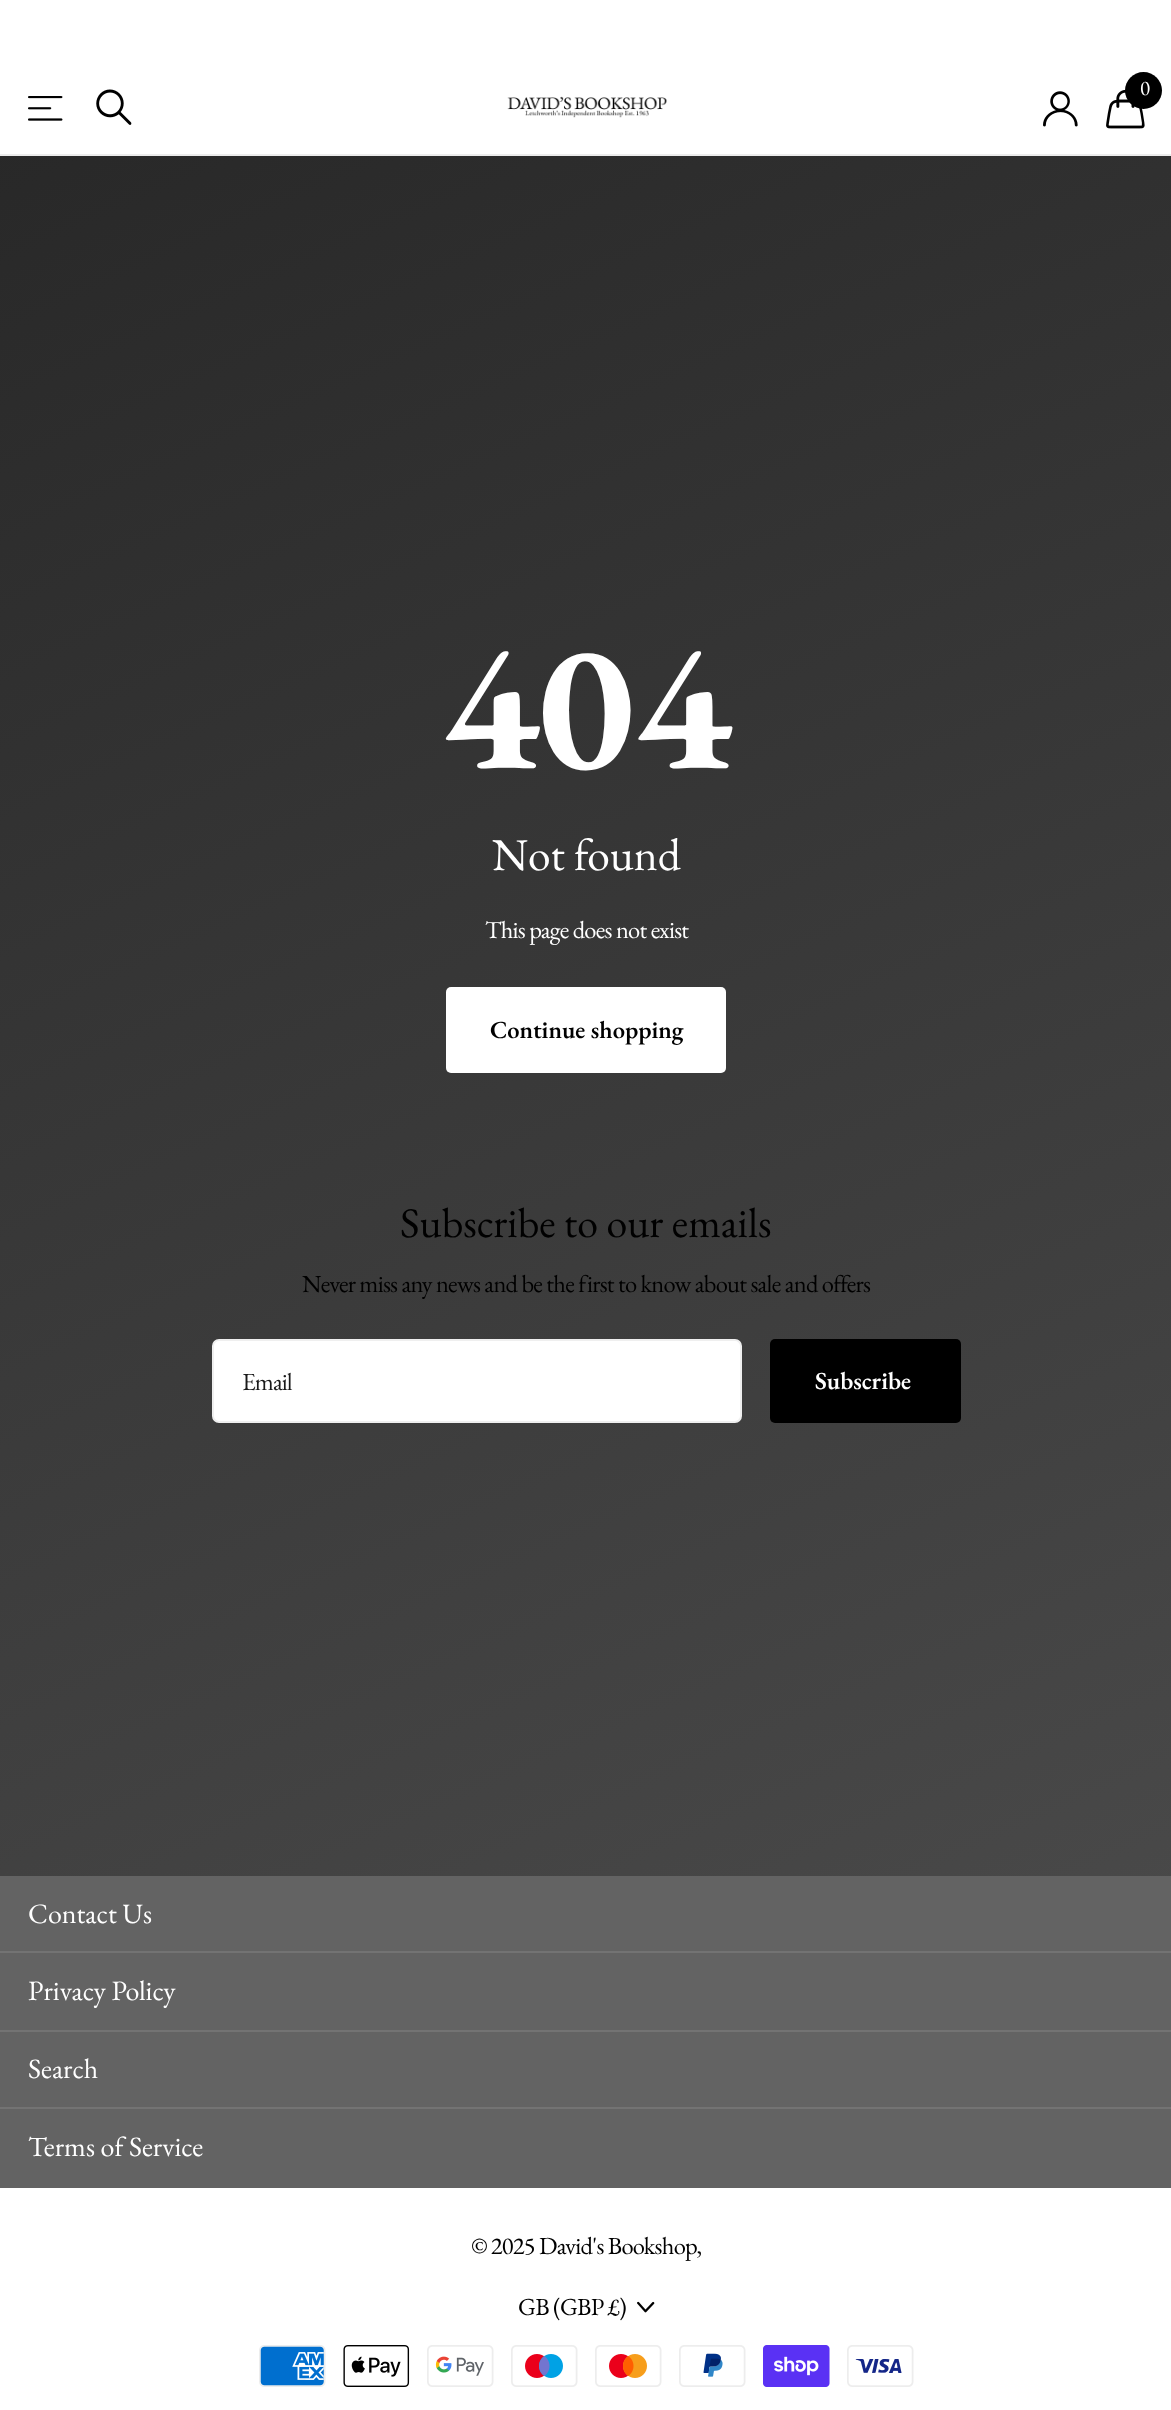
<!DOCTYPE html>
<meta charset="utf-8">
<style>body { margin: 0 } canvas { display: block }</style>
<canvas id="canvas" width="1171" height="2410"></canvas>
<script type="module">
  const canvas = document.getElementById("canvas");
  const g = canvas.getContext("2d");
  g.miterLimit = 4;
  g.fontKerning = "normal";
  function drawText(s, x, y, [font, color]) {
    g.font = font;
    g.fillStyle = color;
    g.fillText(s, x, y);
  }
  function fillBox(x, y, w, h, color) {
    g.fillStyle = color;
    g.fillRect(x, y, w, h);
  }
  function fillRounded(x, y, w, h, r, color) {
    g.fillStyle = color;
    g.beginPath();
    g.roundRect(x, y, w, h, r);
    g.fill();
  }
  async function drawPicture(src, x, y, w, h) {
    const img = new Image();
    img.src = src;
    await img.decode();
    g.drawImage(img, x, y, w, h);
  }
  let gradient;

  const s1 = ["21px EB Garamond", "#FFFFFF"];
  const s2 = ["bold 182px EB Garamond", "#FFFFFF"];
  const s3 = ["45.5px EB Garamond", "#FFFFFF"];
  const s4 = ["24.5px EB Garamond", "#FFFFFF"];
  const s5 = ["600 24.5px EB Garamond", "#000000"];
  const s6 = ["42px EB Garamond", "#000000"];
  const s7 = ["24.5px EB Garamond", "#000000"];
  const s8 = ["24.5px EB Garamond", "#1A1A1A"];
  const s9 = ["600 24.5px EB Garamond", "#FFFFFF"];
  const s10 = ["28px EB Garamond", "#FFFFFF"];

  fillBox(0, 0, 1171, 2410, "#FFFFFF");
  await drawPicture("pic1.png", 28, 96, 35, 25);
  await drawPicture("pic2.png", 96, 89, 36, 36);
  await drawPicture("pic3.png", 507, 96, 160, 22);
  await drawPicture("pic4.png", 1106, 89, 39, 40);
  g.fillStyle = "#000000";
  g.beginPath();
  g.arc(1143.5, 90.5, 18.5, 0, Math.PI * 2);
  g.fill();
  g.letterSpacing = "-1px";
  drawText("0", 1140, 95, s1);
  await drawPicture("pic5.png", 1043, 91, 35, 36);
  fillBox(0, 154, 1171, 2, "#ECECEC");
  gradient = g.createLinearGradient(1113, 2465, 61, 103);
  gradient.addColorStop(0.04, "#4F4F4F");
  gradient.addColorStop(1, "#282828");
  g.fillStyle = gradient;
  g.fillRect(0, 156, 1171, 1720);
  g.letterSpacing = "0px";
  drawText("404", 442, 768, s2);
  drawText("Not found", 492, 870, s3);
  g.letterSpacing = "-0.73px";
  drawText("This page does not exist", 485, 938, s4);
  fillRounded(446, 987, 280, 86, 5, "#FFFFFF");
  g.letterSpacing = "0px";
  drawText("Continue shopping", 490, 1038, s5);
  drawText("Subscribe to our emails", 400, 1237, s6);
  g.letterSpacing = "-0.73px";
  drawText("Never miss any news and be the first to know about sale and offers", 302, 1292, s7);
  g.fillStyle = "#FFFFFF";
  g.beginPath();
  g.roundRect(213, 1340, 528, 82, 6);
  g.fill();
  g.strokeStyle = "#EFEFEF";
  g.lineWidth = 2;
  g.stroke();
  g.letterSpacing = "-1px";
  drawText("Email", 242, 1390, s8);
  fillRounded(770, 1339, 191, 84, 5, "#000000");
  g.letterSpacing = "0px";
  drawText("Subscribe", 815, 1389, s9);
  fillBox(0, 1876, 1171, 312, "#636363");
  drawText("Contact Us", 28, 1923, s10);
  fillBox(0, 1951, 1171, 2, "#737373");
  drawText("Privacy Policy", 28, 2000, s10);
  fillBox(0, 2030, 1171, 2, "#737373");
  drawText("Search", 28, 2078, s10);
  fillBox(0, 2107, 1171, 2, "#737373");
  drawText("Terms of Service", 28, 2156, s10);
  g.letterSpacing = "-0.73px";
  drawText("© 2025 David's Bookshop,", 471, 2254, s7);
  drawText("GB (GBP £)", 518, 2315, s7);
  await drawPicture("pic6.png", 637, 2301, 18, 12);
  await drawPicture("pic7.png", 259, 2345, 67, 42);
  await drawPicture("pic8.png", 343, 2345, 67, 42);
  await drawPicture("pic9.png", 427, 2345, 67, 42);
  await drawPicture("pic10.png", 511, 2345, 67, 42);
  await drawPicture("pic11.png", 595, 2345, 67, 42);
  await drawPicture("pic12.png", 679, 2345, 67, 42);
  await drawPicture("pic13.png", 763, 2345, 67, 42);
  await drawPicture("pic14.png", 847, 2345, 67, 42);
</script>
